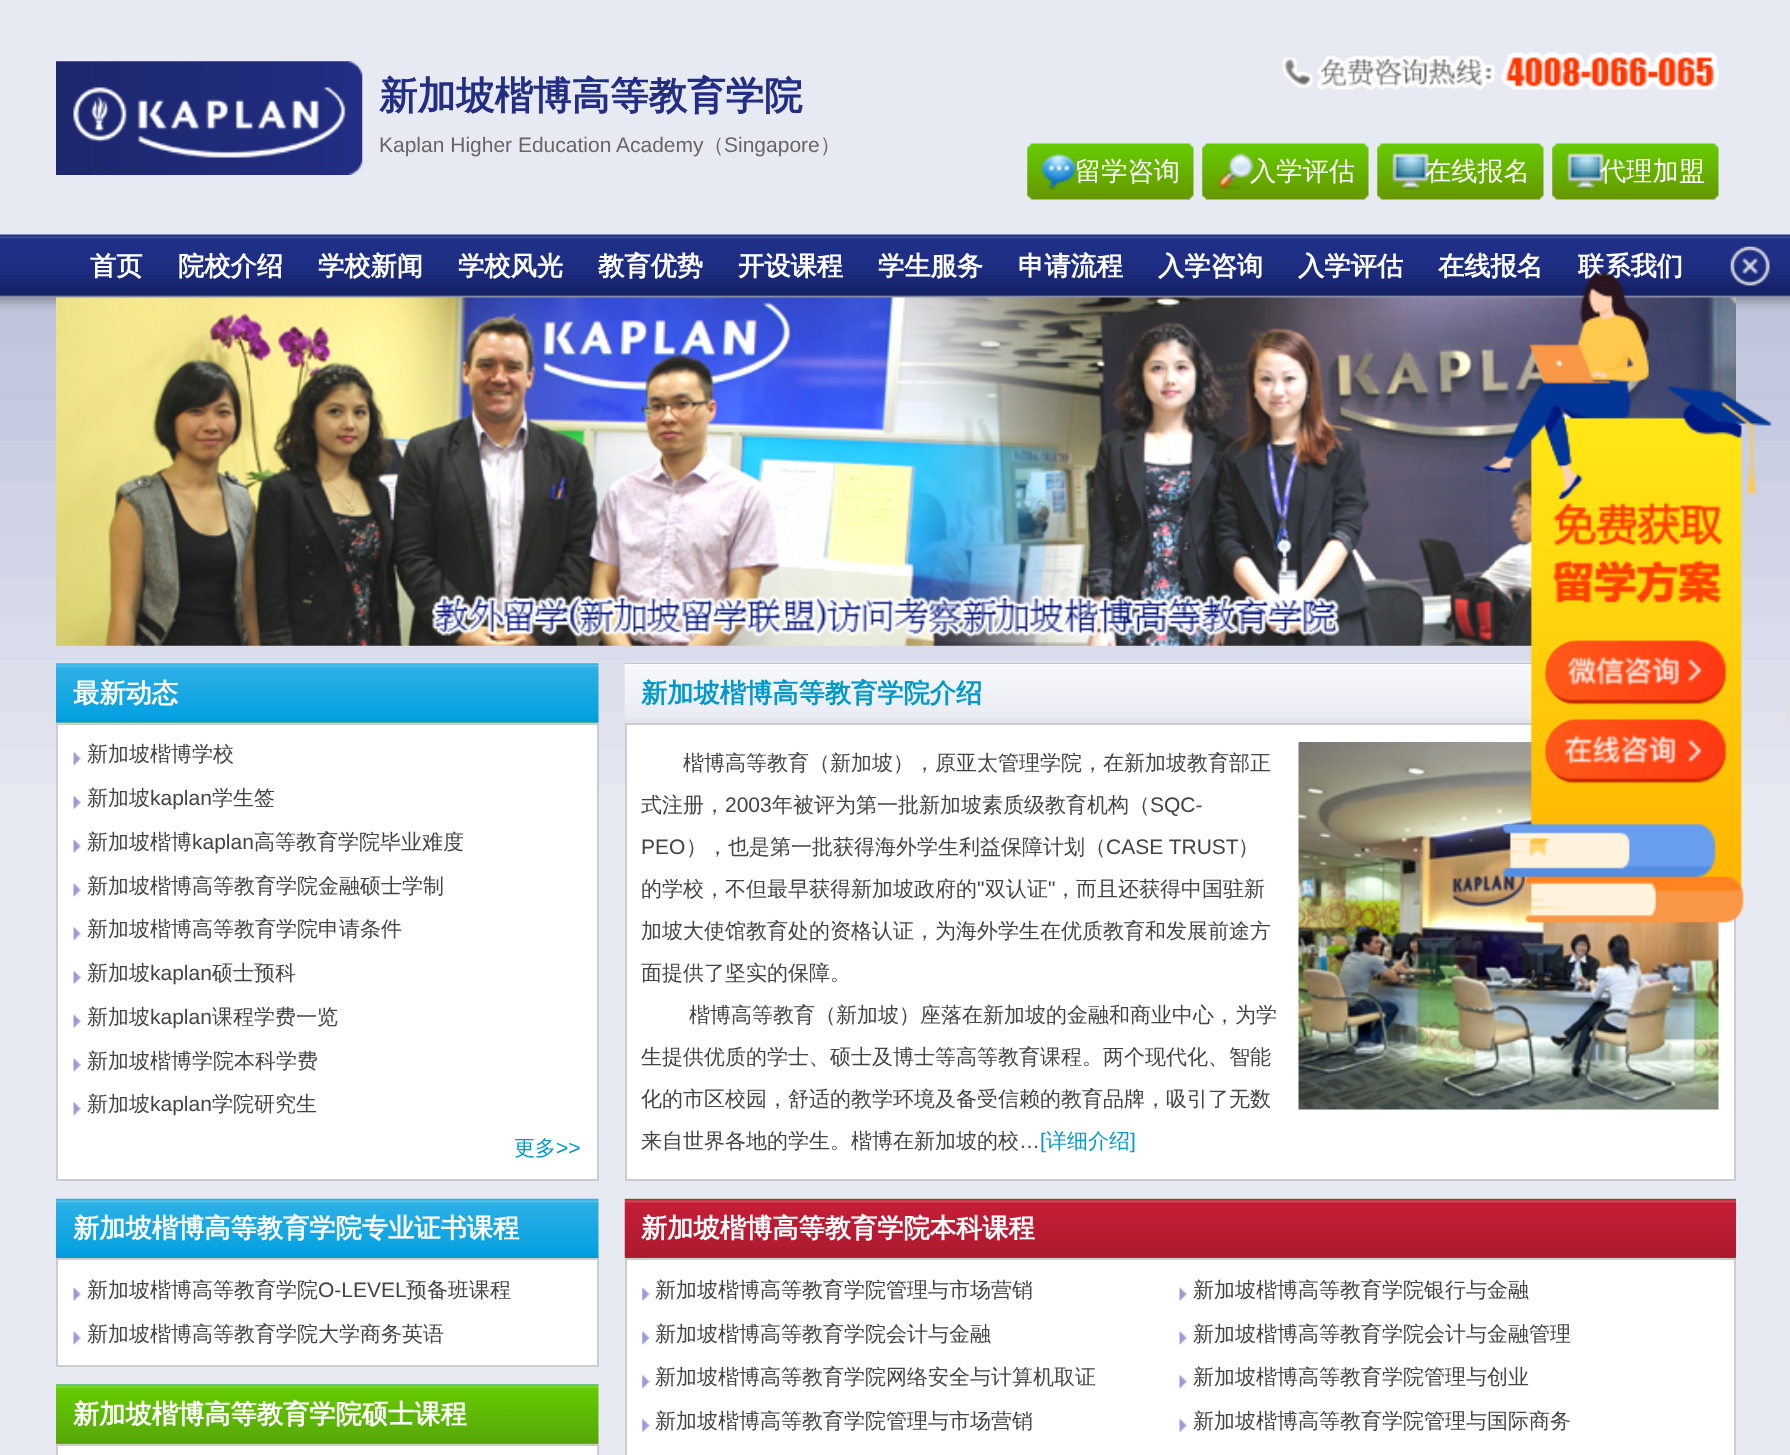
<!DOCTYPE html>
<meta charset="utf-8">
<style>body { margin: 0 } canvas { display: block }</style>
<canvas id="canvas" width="1790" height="1455"></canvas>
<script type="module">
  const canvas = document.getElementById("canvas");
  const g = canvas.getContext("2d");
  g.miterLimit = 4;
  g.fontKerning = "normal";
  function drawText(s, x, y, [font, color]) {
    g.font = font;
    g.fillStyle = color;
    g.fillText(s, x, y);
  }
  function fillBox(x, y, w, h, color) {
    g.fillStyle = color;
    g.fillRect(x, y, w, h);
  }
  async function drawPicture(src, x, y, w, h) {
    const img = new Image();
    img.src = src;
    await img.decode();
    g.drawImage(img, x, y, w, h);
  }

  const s1 = ["bold 38.5px WenQuanYi Zen Hei", "#222E84"];
  const s2 = ["21px Liberation Sans", "#666666"];
  const s3 = ["500 21px WenQuanYi Zen Hei", "#666666"];
  const s4 = ["500 26.25px WenQuanYi Zen Hei", "#FFFFFF"];
  const s5 = ["bold 26.25px WenQuanYi Zen Hei", "#FFFFFF"];
  const s6 = ["500 21px WenQuanYi Zen Hei", "#444444"];
  const s7 = ["21px Liberation Sans", "#444444"];
  const s8 = ["500 21px WenQuanYi Zen Hei", "#0099CC"];
  const s9 = ["21px Liberation Sans", "#0099CC"];
  const s10 = ["bold 26.25px WenQuanYi Zen Hei", "#0099CC"];

  fillBox(0, 0, 1790, 1455, "#E7EAF3");
  await drawPicture("pic1.png", 0, 234, 1790, 551);
  await drawPicture("pic2.png", 56, 61, 307, 114);
  drawText("新加坡楷博高等教育学院", 379, 109, s1);
  drawText("Kaplan Higher Education Academy", 379, 152, s2);
  drawText("（", 703, 152, s3);
  drawText("Singapore", 724, 152, s2);
  drawText("）", 820, 152, s3);
  await drawPicture("pic3.png", 1282, 52, 437, 38);
  await drawPicture("pic4.png", 1027, 143, 167, 57);
  drawText("留学咨询", 1075, 180, s4);
  await drawPicture("pic5.png", 1202, 143, 167, 57);
  drawText("入学评估", 1250, 180, s4);
  await drawPicture("pic6.png", 1377, 143, 167, 57);
  drawText("在线报名", 1425, 180, s4);
  await drawPicture("pic7.png", 1552, 143, 167, 57);
  drawText("代理加盟", 1600, 180, s4);
  drawText("首页", 90, 275, s5);
  drawText("院校介绍", 178, 275, s5);
  drawText("学校新闻", 318, 275, s5);
  drawText("学校风光", 458, 275, s5);
  drawText("教育优势", 598, 275, s5);
  drawText("开设课程", 738, 275, s5);
  drawText("学生服务", 878, 275, s5);
  drawText("申请流程", 1018, 275, s5);
  drawText("入学咨询", 1158, 275, s5);
  drawText("入学评估", 1298, 275, s5);
  drawText("在线报名", 1438, 275, s5);
  drawText("联系我们", 1578, 275, s5);
  await drawPicture("pic12.png", 56, 297, 1680, 349);
  await drawPicture("pic20.png", 624, 663, 908, 57);
  g.beginPath();
  g.rect(626, 724, 1109, 456);
  g.fill();
  g.strokeStyle = "#CCCCCC";
  g.lineWidth = 2;
  g.stroke();
  await drawPicture("pic21.png", 1298, 742, 421, 368);
  await drawPicture("pic8.png", 1482, 273, 308, 650);
  await drawPicture("pic9.png", 1730, 246, 40, 40);
  await drawPicture("pic10.png", 1545, 640, 182, 65);
  await drawPicture("pic11.png", 1545, 718, 182, 66);
  await drawPicture("pic13.png", 56, 663, 543, 60);
  drawText("最新动态", 73, 702, s5);
  g.beginPath();
  g.rect(57, 724, 541, 456);
  g.fill();
  g.stroke();
  await drawPicture("pic14.png", 73, 752, 8, 14);
  drawText("新加坡楷博学校", 87, 761, s6);
  await drawPicture("pic15.png", 73, 795, 8, 14);
  drawText("新加坡", 87, 805, s6);
  drawText("kaplan", 150, 805, s7);
  drawText("学生签", 212, 805, s6);
  await drawPicture("pic16.png", 73, 839, 8, 14);
  drawText("新加坡楷博", 87, 849, s6);
  drawText("kaplan", 192, 849, s7);
  drawText("高等教育学院毕业难度", 254, 849, s6);
  await drawPicture("pic17.png", 73, 883, 8, 14);
  drawText("新加坡楷博高等教育学院金融硕士学制", 87, 893, s6);
  await drawPicture("pic14.png", 73, 927, 8, 14);
  drawText("新加坡楷博高等教育学院申请条件", 87, 936, s6);
  await drawPicture("pic15.png", 73, 970, 8, 14);
  drawText("新加坡", 87, 980, s6);
  drawText("kaplan", 150, 980, s7);
  drawText("硕士预科", 212, 980, s6);
  await drawPicture("pic16.png", 73, 1014, 8, 14);
  drawText("新加坡", 87, 1024, s6);
  drawText("kaplan", 150, 1024, s7);
  drawText("课程学费一览", 212, 1024, s6);
  await drawPicture("pic17.png", 73, 1058, 8, 14);
  drawText("新加坡楷博学院本科学费", 87, 1068, s6);
  await drawPicture("pic14.png", 73, 1102, 8, 14);
  drawText("新加坡", 87, 1111, s6);
  drawText("kaplan", 150, 1111, s7);
  drawText("学院研究生", 212, 1111, s6);
  drawText("更多", 514, 1155, s8);
  drawText(">>", 556, 1155, s9);
  await drawPicture("pic18.png", 56, 1198, 543, 60);
  drawText("新加坡楷博高等教育学院专业证书课程", 73, 1237, s5);
  g.beginPath();
  g.rect(57, 1259, 541, 107);
  g.fill();
  g.stroke();
  await drawPicture("pic16.png", 73, 1287, 8, 14);
  drawText("新加坡楷博高等教育学院", 87, 1297, s6);
  drawText("O-LEVEL", 318, 1297, s7);
  drawText("预备班课程", 406, 1297, s6);
  await drawPicture("pic17.png", 73, 1331, 8, 14);
  drawText("新加坡楷博高等教育学院大学商务英语", 87, 1341, s6);
  await drawPicture("pic19.png", 56, 1384, 543, 60);
  drawText("新加坡楷博高等教育学院硕士课程", 73, 1423, s5);
  g.beginPath();
  g.rect(57, 1445, 541, 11);
  g.fill();
  g.stroke();
  drawText("新加坡楷博高等教育学院介绍", 641, 702, s10);
  drawText("楷博高等教育（新加坡），原亚太管理学院，在新加坡教育部正", 683, 770, s6);
  drawText("式注册，", 641, 812, s6);
  drawText("2003", 725, 812, s7);
  drawText("年被评为第一批新加坡素质级教育机构（", 772, 812, s6);
  drawText("SQC-", 1150, 812, s7);
  drawText("PEO", 641, 854, s7);
  drawText("），也是第一批获得海外学生利益保障计划（", 686, 854, s6);
  drawText("CASE TRUST", 1106, 854, s7);
  drawText("）", 1238, 854, s6);
  drawText("的学校，不但最早获得新加坡政府的", 641, 896, s6);
  drawText("\"", 977, 896, s7);
  drawText("双认证", 985, 896, s6);
  drawText("\"", 1048, 896, s7);
  drawText("，而且还获得中国驻新", 1055, 896, s6);
  drawText("加坡大使馆教育处的资格认证，为海外学生在优质教育和发展前途方", 641, 938, s6);
  drawText("面提供了坚实的保障。", 641, 980, s6);
  drawText("楷博高等教育（新加坡）座落在新加坡的金融和商业中心，为学", 689, 1022, s6);
  drawText("生提供优质的学士、硕士及博士等高等教育课程。两个现代化、智能", 641, 1064, s6);
  drawText("化的市区校园，舒适的教学环境及备受信赖的教育品牌，吸引了无数", 641, 1106, s6);
  drawText("来自世界各地的学生。楷博在新加坡的校", 641, 1148, s6);
  drawText("…", 1019, 1148, s7);
  drawText("[", 1040, 1148, s9);
  drawText("详细介绍", 1046, 1148, s8);
  drawText("]", 1130, 1148, s9);
  await drawPicture("pic22.png", 624, 1198, 1112, 61);
  drawText("新加坡楷博高等教育学院本科课程", 641, 1237, s5);
  g.beginPath();
  g.rect(626, 1259, 1109, 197);
  g.fill();
  g.stroke();
  await drawPicture("pic23.png", 642, 1287, 8, 14);
  drawText("新加坡楷博高等教育学院管理与市场营销", 655, 1297, s6);
  await drawPicture("pic16.png", 1179, 1287, 8, 14);
  drawText("新加坡楷博高等教育学院银行与金融", 1193, 1297, s6);
  await drawPicture("pic24.png", 642, 1331, 8, 14);
  drawText("新加坡楷博高等教育学院会计与金融", 655, 1341, s6);
  await drawPicture("pic17.png", 1179, 1331, 8, 14);
  drawText("新加坡楷博高等教育学院会计与金融管理", 1193, 1341, s6);
  await drawPicture("pic25.png", 642, 1375, 8, 14);
  drawText("新加坡楷博高等教育学院网络安全与计算机取证", 655, 1384, s6);
  await drawPicture("pic14.png", 1179, 1375, 8, 14);
  drawText("新加坡楷博高等教育学院管理与创业", 1193, 1384, s6);
  await drawPicture("pic26.png", 642, 1418, 8, 14);
  drawText("新加坡楷博高等教育学院管理与市场营销", 655, 1428, s6);
  await drawPicture("pic15.png", 1179, 1418, 8, 14);
  drawText("新加坡楷博高等教育学院管理与国际商务", 1193, 1428, s6);
</script>
